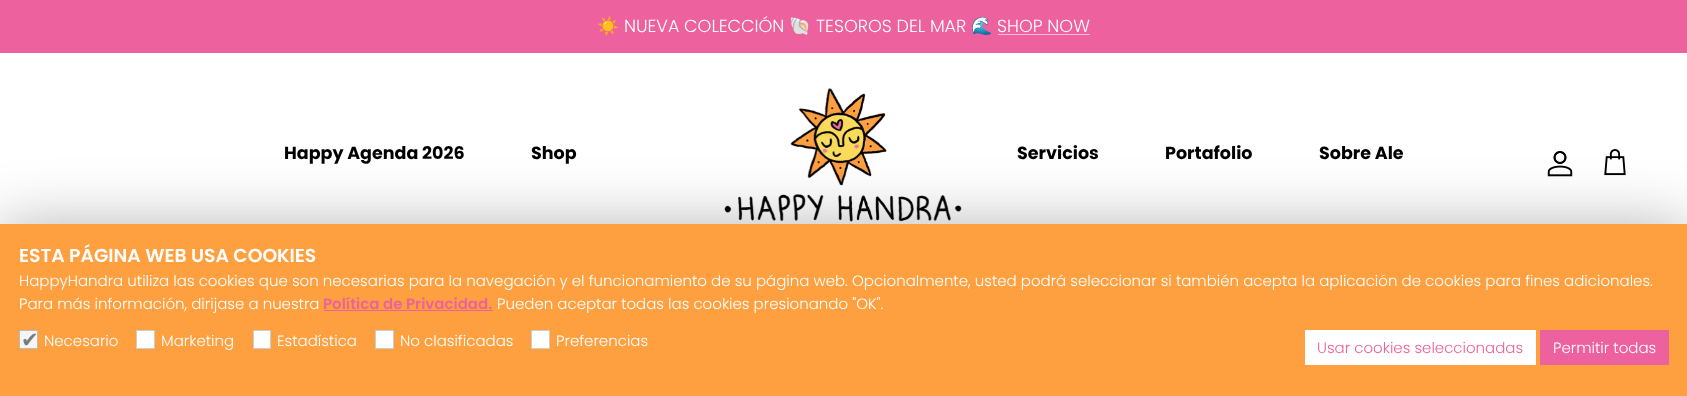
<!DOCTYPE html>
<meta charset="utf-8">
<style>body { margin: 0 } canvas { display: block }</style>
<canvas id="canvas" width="1687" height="396"></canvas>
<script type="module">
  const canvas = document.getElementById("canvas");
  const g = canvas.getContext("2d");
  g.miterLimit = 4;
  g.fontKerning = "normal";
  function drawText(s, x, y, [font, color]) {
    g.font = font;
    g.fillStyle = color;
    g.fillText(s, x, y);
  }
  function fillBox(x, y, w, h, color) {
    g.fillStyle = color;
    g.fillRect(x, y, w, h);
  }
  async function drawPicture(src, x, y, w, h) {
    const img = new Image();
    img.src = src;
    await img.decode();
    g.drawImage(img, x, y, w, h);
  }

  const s1 = ["17.5px Noto Color Emoji", "#FFFFFF"];
  const s2 = ["300 17.5px Poppins", "#FFFFFF"];
  const s3 = ["bold 17.5px Poppins", "#000000"];
  const s4 = ["600 18.75px Poppins", "#FFFFFF"];
  const s5 = ["300 15px Poppins", "#FFFFFF"];
  const s6 = ["600 15px Poppins", "#ED619E"];
  const s7 = ["21px DejaVu Sans", "#7B7B7B"];
  const s8 = ["300 15px Poppins", "#ED619E"];

  fillBox(0, 0, 1687, 396, "#FFFFFF");
  fillBox(0, 0, 1687, 53, "#ED619E");
  drawText("☀️", 597, 32, s1);
  drawText("NUEVA COLECCIÓN", 624, 32, s2);
  drawText("🐚", 789, 32, s1);
  drawText("TESOROS DEL MAR", 816, 32, s2);
  drawText("🌊", 971, 32, s1);
  drawText("SHOP NOW", 997, 32, s2);
  fillBox(998, 34, 92, 1, "#F8C0D8");
  await drawPicture("pic1.png", 724, 88, 238, 134);
  drawText("Happy Agenda 2026", 284, 159, s3);
  drawText("Shop", 531, 159, s3);
  drawText("Servicios", 1017, 159, s3);
  drawText("Portafolio", 1165, 159, s3);
  drawText("Sobre Ale", 1319, 159, s3);
  await drawPicture("pic2.png", 1547, 151, 26, 26);
  await drawPicture("pic3.png", 1604, 149, 22, 27);
  g.fillStyle = "rgba(0, 0, 0, 0.3)";
  g.filter = "blur(31px)";
  g.beginPath();
  g.rect(0, 226, 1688, 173);
  g.fill();
  g.filter = "none";
  fillBox(0, 224, 1687, 172, "#FEA040");
  drawText("ESTA PÁGINA WEB USA COOKIES", 19, 262, s4);
  drawText("HappyHandra utiliza las cookies que son necesarias para la navegación y el funcionamiento de su página web. Opcionalmente, usted podrá seleccionar si también acepta la aplicación de cookies para fines adicionales.", 19, 286, s5);
  drawText("Para más información, dirijase a nuestra", 19, 309, s5);
  drawText("Política de Privacidad.", 323, 309, s6);
  fillBox(324, 310, 169, 1, "#ED619E");
  drawText("Pueden aceptar todas las cookies presionando \"OK\".", 497, 309, s5);
  g.fillStyle = "#F5F5F5";
  g.beginPath();
  g.rect(19.5, 330.5, 18, 18);
  g.fill();
  g.strokeStyle = "#BBBBBB";
  g.stroke();
  drawText("✔", 21, 347, s7);
  drawText("Necesario", 44, 346, s5);
  g.beginPath();
  g.rect(136.5, 330.5, 18, 18);
  g.fill();
  g.strokeStyle = "#CCCCCC";
  g.stroke();
  drawText("Marketing", 161, 346, s5);
  g.beginPath();
  g.rect(253.5, 330.5, 17, 18);
  g.fill();
  g.stroke();
  drawText("Estadística", 277, 346, s5);
  g.beginPath();
  g.rect(375.5, 330.5, 18, 18);
  g.fill();
  g.stroke();
  drawText("No clasificadas", 400, 346, s5);
  g.beginPath();
  g.rect(531.5, 330.5, 18, 18);
  g.fill();
  g.stroke();
  drawText("Preferencias", 556, 346, s5);
  fillBox(1305, 330, 231, 35, "#FFFFFF");
  drawText("Usar cookies seleccionadas", 1317, 353, s8);
  fillBox(1540, 330, 129, 35, "#ED619E");
  drawText("Permitir todas", 1553, 353, s5);
</script>
